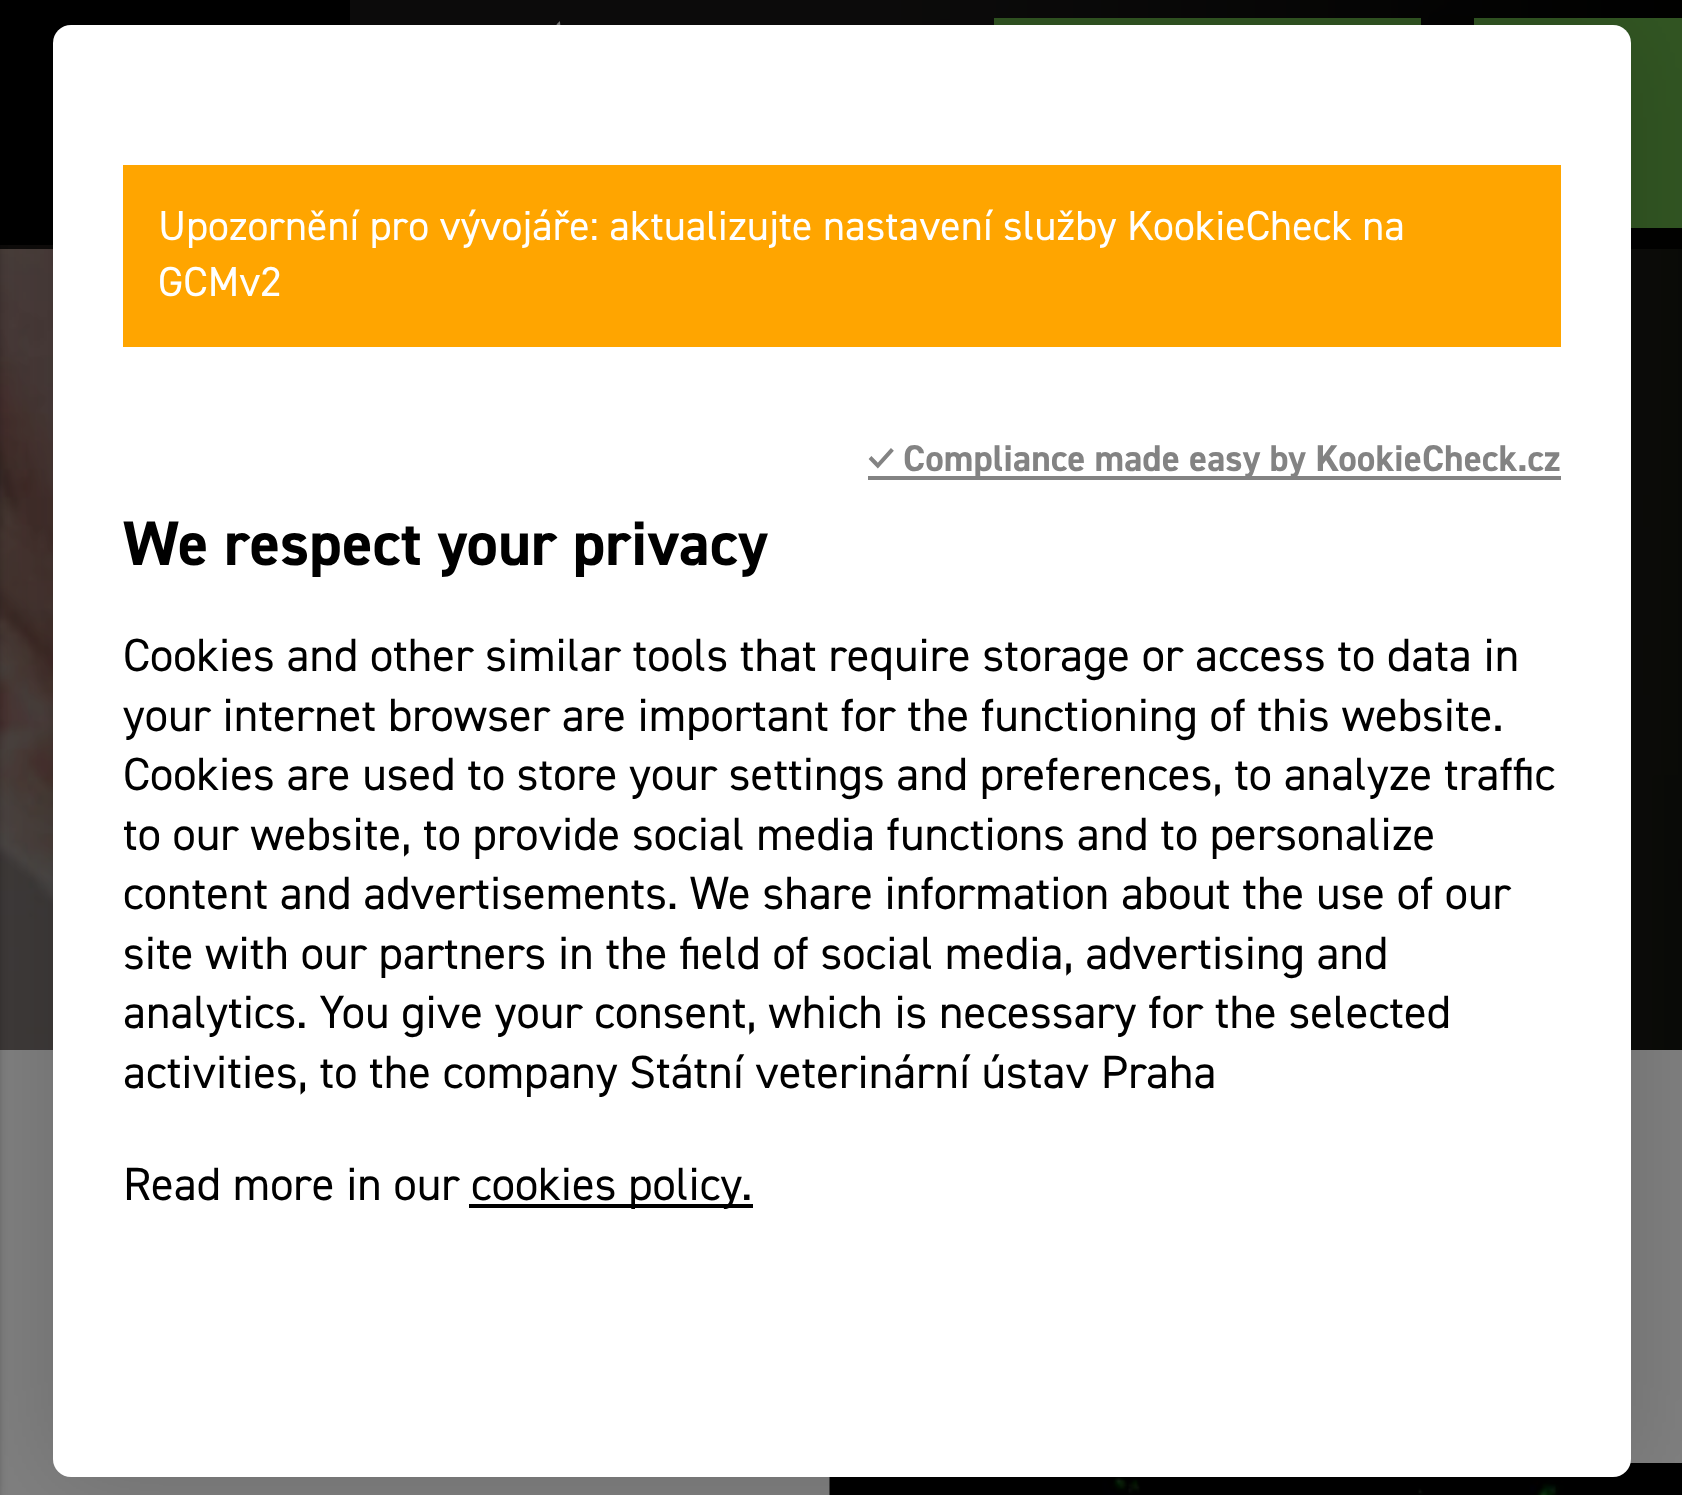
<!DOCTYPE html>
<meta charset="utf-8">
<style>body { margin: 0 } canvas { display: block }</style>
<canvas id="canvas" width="1682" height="1495"></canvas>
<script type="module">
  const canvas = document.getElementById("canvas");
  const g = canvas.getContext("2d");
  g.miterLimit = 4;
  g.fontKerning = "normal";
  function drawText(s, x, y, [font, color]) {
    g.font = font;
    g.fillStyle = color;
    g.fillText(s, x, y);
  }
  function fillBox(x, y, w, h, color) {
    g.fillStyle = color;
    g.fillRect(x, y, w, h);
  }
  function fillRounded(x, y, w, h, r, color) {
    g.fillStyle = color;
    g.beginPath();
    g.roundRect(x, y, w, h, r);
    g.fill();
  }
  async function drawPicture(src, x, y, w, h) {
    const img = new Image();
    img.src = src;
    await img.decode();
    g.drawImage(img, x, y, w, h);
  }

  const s1 = ["42px 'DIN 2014'", "#FFFFFF"];
  const s2 = ["bold 37.3px Ubuntu", "#838383"];
  const s3 = ["bold 37.3px 'DIN 2014'", "#838383"];
  const s4 = ["bold 63px 'DIN 2014'", "#000000"];
  const s5 = ["46.7px 'DIN 2014'", "#000000"];

  fillBox(0, 0, 1682, 1495, "#FFFFFF");
  await drawPicture("pic1.png", 0, 0, 1682, 1050);
  fillBox(0, 1050, 1682, 445, "#808080");
  await drawPicture("pic2.png", 829, 1463, 853, 32);
  fillBox(0, 0, 1682, 249, "rgba(0, 0, 0, 0.8)");
  g.fillStyle = "rgba(0, 0, 0, 0.2)";
  g.filter = "blur(3.5px)";
  g.beginPath();
  g.rect(-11, 7, 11, 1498);
  g.fill();
  g.filter = "none";
  fillBox(0, 0, 350, 245, "rgba(0, 0, 0, 0.9)");
  await drawPicture("pic3.png", 556, 21, 5, 4);
  g.strokeStyle = "#325623";
  g.lineWidth = 11;
  g.strokeRect(999.5, 23.5, 416, 199);
  fillBox(1474, 18, 208, 210, "#325623");
  g.fillStyle = "rgba(0, 0, 0, 0.15)";
  g.filter = "blur(52.5px)";
  g.beginPath();
  g.roundRect(53, 25, 1578, 1452, 18);
  g.fill();
  g.filter = "none";
  fillRounded(53, 25, 1578, 1452, 18, "#FFFFFF");
  fillBox(123, 165, 1438, 182, "#FFA500");
  drawText("Upozornění pro vývojáře: aktualizujte nastavení služby KookieCheck na", 158, 240, s1);
  drawText("GCMv2", 158, 296, s1);
  drawText("✓", 868, 471, s2);
  fillBox(868, 476, 693, 4, "#838383");
  drawText("Compliance made easy by KookieCheck.cz", 903, 471, s3);
  drawText("We respect your privacy", 123, 565, s4);
  drawText("Cookies and other similar tools that require storage or access to data in", 123, 671, s5);
  drawText("your internet browser are important for the functioning of this website.", 123, 731, s5);
  drawText("Cookies are used to store your settings and preferences, to analyze traffic", 123, 790, s5);
  drawText("to our website, to provide social media functions and to personalize", 123, 850, s5);
  drawText("content and advertisements. We share information about the use of our", 123, 909, s5);
  drawText("site with our partners in the field of social media, advertising and", 123, 969, s5);
  drawText("analytics. You give your consent, which is necessary for the selected", 123, 1028, s5);
  drawText("activities, to the company Státní veterinární ústav Praha", 123, 1088, s5);
  drawText("Read more in our", 123, 1200, s5);
  fillBox(469, 1204, 284, 4, "#000000");
  drawText("cookies policy.", 471, 1200, s5);
</script>
